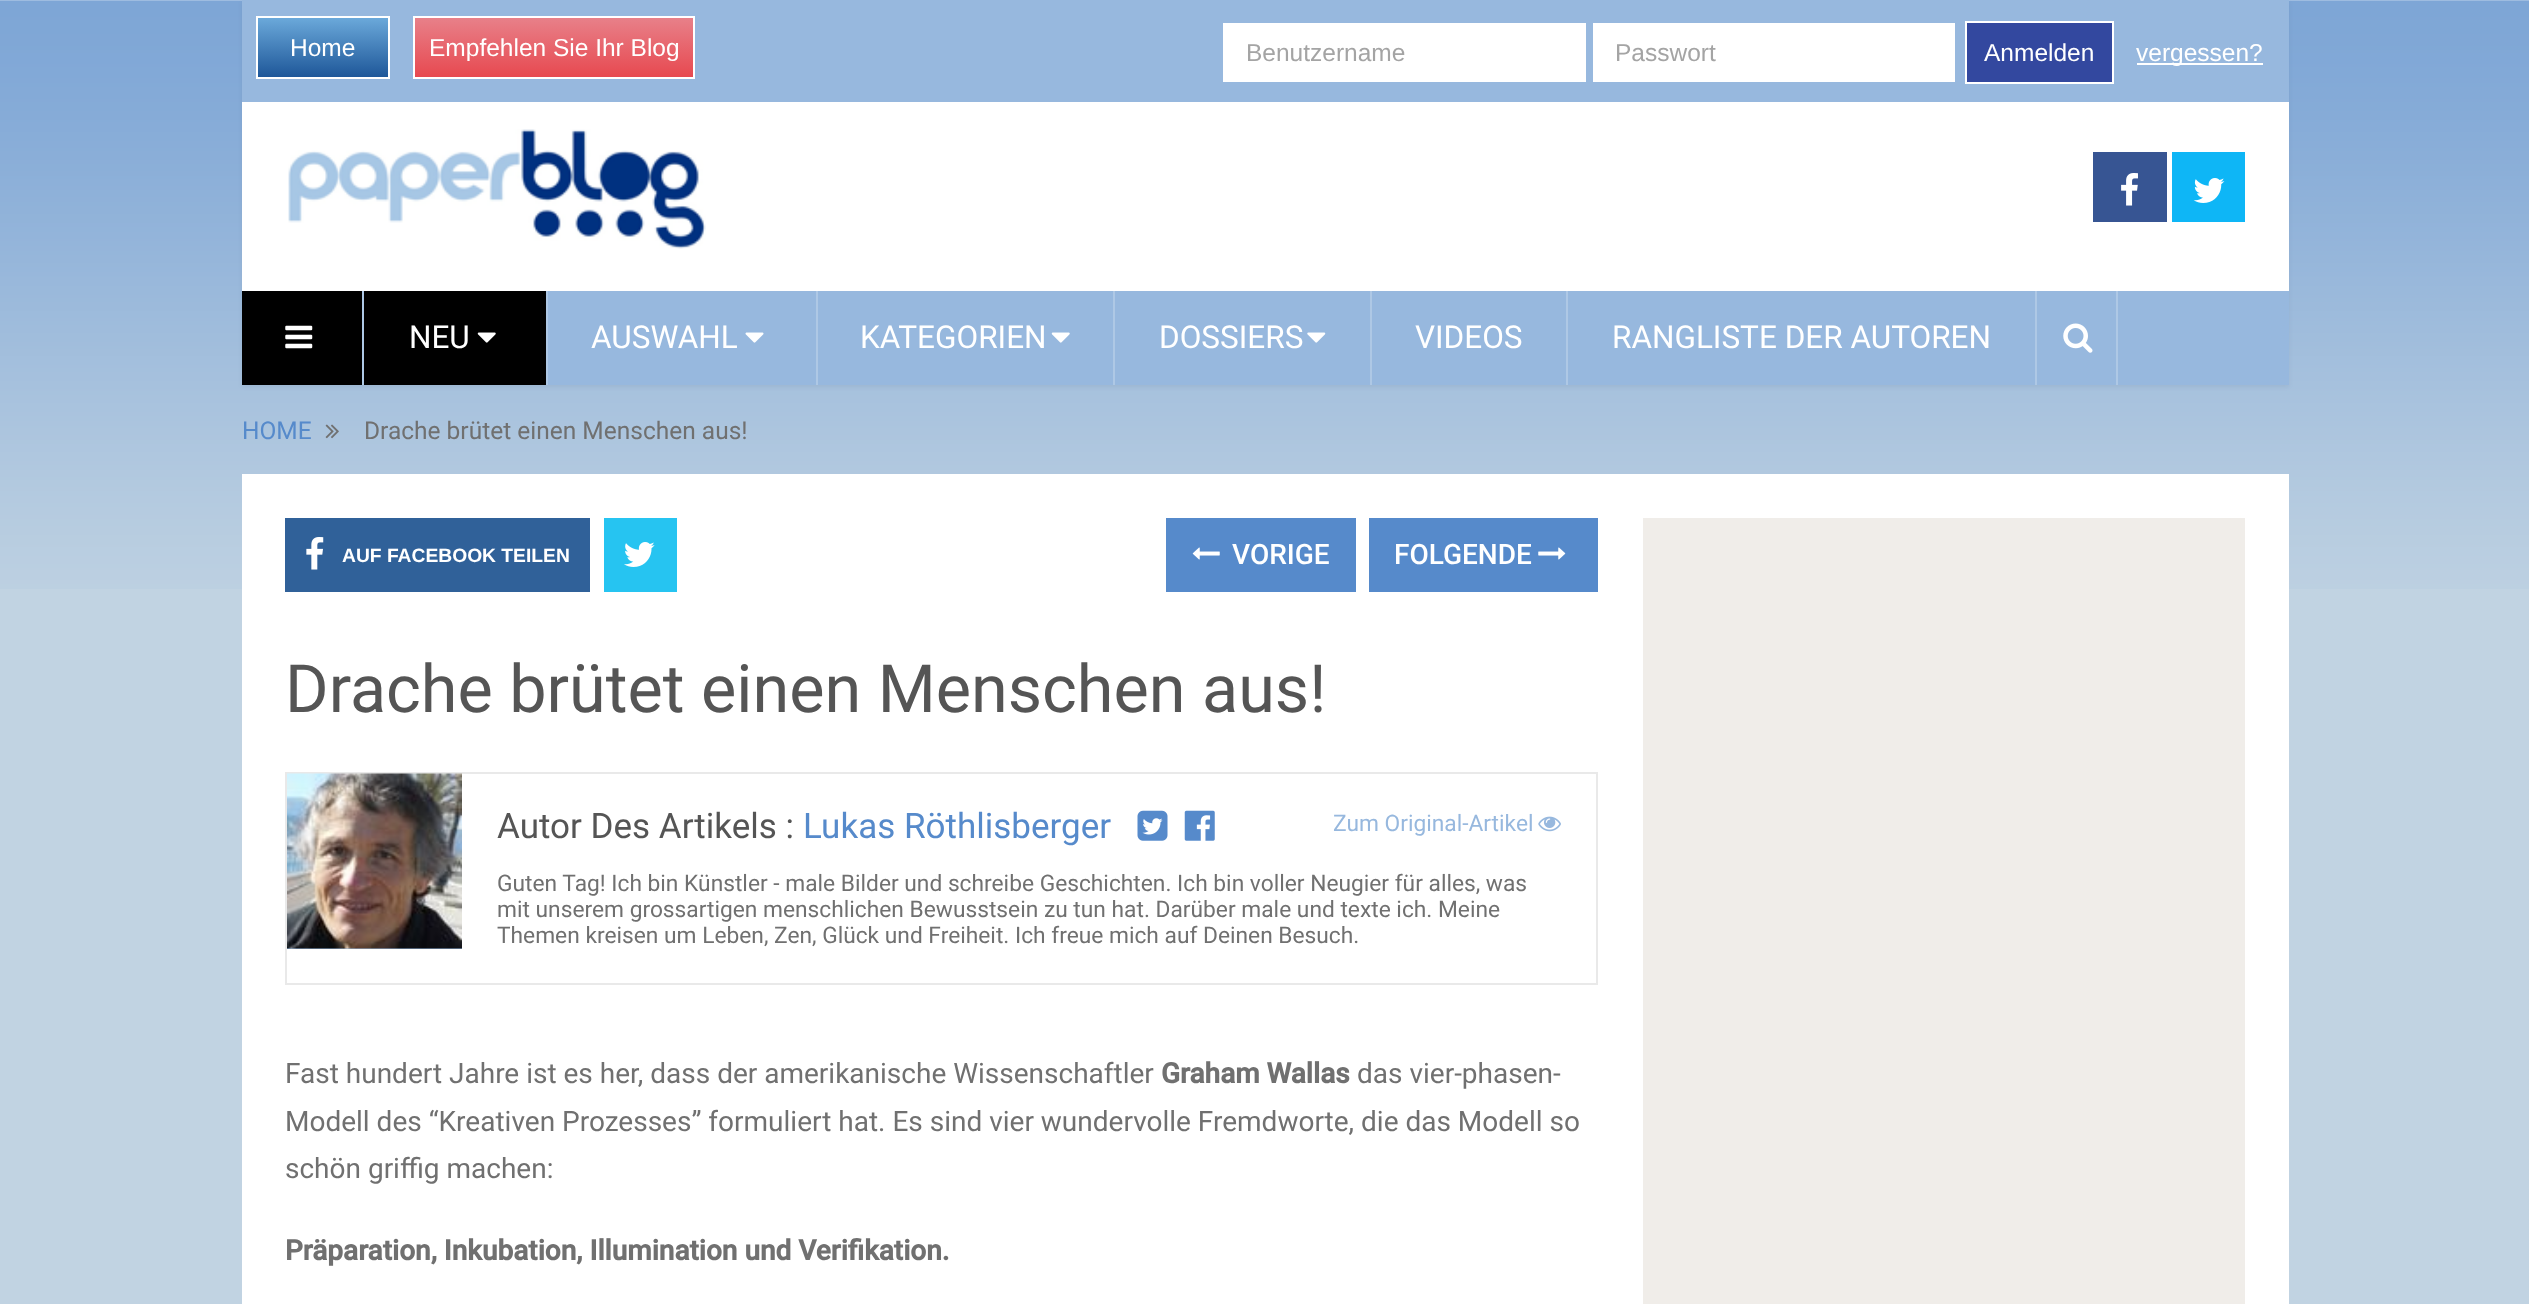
<!DOCTYPE html>
<meta charset="utf-8">
<style>body { margin: 0 } canvas { display: block }</style>
<canvas id="canvas" width="2529" height="1304"></canvas>
<script type="module">
  const canvas = document.getElementById("canvas");
  const g = canvas.getContext("2d");
  g.miterLimit = 4;
  g.fontKerning = "normal";
  function drawText(s, x, y, [font, color]) {
    g.font = font;
    g.fillStyle = color;
    g.fillText(s, x, y);
  }
  function fillBox(x, y, w, h, color) {
    g.fillStyle = color;
    g.fillRect(x, y, w, h);
  }
  async function drawPicture(src, x, y, w, h) {
    const img = new Image();
    img.src = src;
    await img.decode();
    g.drawImage(img, x, y, w, h);
  }
  let gradient;

  const s1 = ["24.5px Liberation Sans", "#FFFFFF"];
  const s2 = ["24.5px Liberation Sans", "#A4A4A4"];
  const s3 = ["31.5px Roboto", "#FFFFFF"];
  const s4 = ["24.5px Roboto", "#568ACB"];
  const s5 = ["24.5px Roboto", "#707070"];
  const s6 = ["bold 19.25px Liberation Sans", "#FFFFFF"];
  const s7 = ["500 28px Roboto", "#FFFFFF"];
  const s8 = ["66.5px Roboto", "#555555"];
  const s9 = ["35px Roboto", "#555555"];
  const s10 = ["35px Roboto", "#568ACB"];
  const s11 = ["22.75px Roboto", "#97B8DE"];
  const s12 = ["22.75px Roboto", "#707070"];
  const s13 = ["28px Roboto", "#707070"];
  const s14 = ["bold 28px Roboto", "#707070"];

  fillBox(0, 0, 2529, 1304, "#C1D3E2");
  await drawPicture("pic1.png", 0, 0, 2529, 589);
  g.fillStyle = "rgba(0, 0, 0, 0.05)";
  g.filter = "blur(2px)";
  g.beginPath();
  g.rect(242, 2, 2047, 385);
  g.fill();
  g.filter = "none";
  fillBox(242, 102, 2047, 189, "#FFFFFF");
  fillBox(242, 0, 2047, 102, "#97B8DE");
  gradient = g.createLinearGradient(323, 17, 323, 77);
  gradient.addColorStop(0, "#6CAADB");
  gradient.addColorStop(1, "#1E5799");
  gradient.addColorStop(1, "#A2BDD8");
  g.fillStyle = gradient;
  g.fillRect(258, 18, 130, 59);
  g.strokeStyle = "#FFFFFF";
  g.lineWidth = 2;
  g.strokeRect(257, 17, 132, 61);
  drawText("Home", 290, 56, s1);
  gradient = g.createLinearGradient(554, 17, 554, 77);
  gradient.addColorStop(0, "#E8818A");
  gradient.addColorStop(1, "#E74950");
  g.fillStyle = gradient;
  g.fillRect(415, 18, 278, 59);
  g.strokeRect(414, 17, 280, 61);
  drawText("Empfehlen Sie Ihr Blog", 429, 56, s1);
  fillBox(1223, 23, 363, 59, "#FFFFFF");
  drawText("Benutzername", 1246, 61, s2);
  fillBox(1593, 23, 362, 59, "#FFFFFF");
  drawText("Passwort", 1615, 61, s2);
  g.fillStyle = "#33489F";
  g.beginPath();
  g.rect(1966, 22, 147, 61);
  g.fill();
  g.stroke();
  drawText("Anmelden", 1984, 61, s1);
  fillBox(2137, 63, 126, 2, "#FFFFFF");
  drawText("vergessen?", 2136, 61, s1);
  await drawPicture("pic2.png", 288, 129, 418, 120);
  fillBox(2093, 152, 74, 70, "#375593");
  await drawPicture("pic3.png", 2121, 173, 17, 33);
  fillBox(2172, 152, 73, 70, "#0EB6F6");
  await drawPicture("pic4.png", 2193, 178, 32, 25);
  fillBox(548, 291, 1741, 94, "#97B8DE");
  fillBox(362, 291, 2, 94, "#AEC8E5");
  fillBox(242, 291, 120, 94, "#000000");
  await drawPicture("pic5.png", 285, 325, 28, 24);
  fillBox(546, 291, 2, 94, "#AEC8E5");
  fillBox(364, 291, 182, 94, "#000000");
  drawText("NEU", 409, 348, s3);
  await drawPicture("pic6.png", 477, 332, 19, 11);
  fillBox(816, 291, 2, 94, "#AEC8E5");
  drawText("AUSWAHL", 591, 348, s3);
  await drawPicture("pic7.png", 745, 332, 19, 11);
  fillBox(1113, 291, 2, 94, "#AEC8E5");
  drawText("KATEGORIEN", 860, 348, s3);
  await drawPicture("pic8.png", 1051, 332, 19, 11);
  fillBox(1370, 291, 2, 94, "#AEC8E5");
  drawText("DOSSIERS", 1159, 348, s3);
  await drawPicture("pic9.png", 1307, 332, 19, 11);
  fillBox(1566, 291, 2, 94, "#AEC8E5");
  drawText("VIDEOS", 1415, 348, s3);
  fillBox(2035, 291, 2, 94, "#AEC8E5");
  drawText("RANGLISTE DER AUTOREN", 1612, 348, s3);
  fillBox(2116, 291, 2, 94, "#AEC8E5");
  await drawPicture("pic10.png", 2063, 323, 30, 30);
  drawText("HOME", 242, 439, s4);
  await drawPicture("pic11.png", 325, 424, 14, 15);
  drawText("Drache brütet einen Menschen aus!", 364, 439, s5);
  fillBox(242, 474, 2047, 830, "#FFFFFF");
  fillBox(285, 518, 305, 74, "#306199");
  await drawPicture("pic12.png", 306, 537, 18, 33);
  drawText("AUF FACEBOOK TEILEN", 342, 562, s6);
  fillBox(604, 518, 73, 74, "#26C4F1");
  await drawPicture("pic13.png", 624, 542, 31, 25);
  fillBox(1166, 518, 190, 74, "#568ACB");
  await drawPicture("pic14.png", 1192, 547, 28, 13);
  drawText("VORIGE", 1232, 564, s7);
  fillBox(1369, 518, 229, 74, "#568ACB");
  drawText("FOLGENDE", 1394, 564, s7);
  await drawPicture("pic15.png", 1538, 547, 28, 13);
  drawText("Drache brütet einen Menschen aus!", 285, 712, s8);
  g.strokeStyle = "#E9E9E9";
  g.strokeRect(286, 773, 1311, 211);
  fillBox(287, 948, 175, 1, "#97B8DE");
  await drawPicture("pic16.png", 287, 773, 175, 176);
  drawText("Autor Des Artikels :", 497, 838, s9);
  drawText("Lukas Röthlisberger", 803, 838, s10);
  await drawPicture("pic17.png", 1137, 810, 31, 31);
  await drawPicture("pic18.png", 1184, 810, 31, 31);
  drawText("Zum Original-Artikel", 1333, 831, s11);
  await drawPicture("pic19.png", 1538, 816, 23, 16);
  drawText("Guten Tag! Ich bin Künstler - male Bilder und schreibe Geschichten. Ich bin voller Neugier für alles, was", 497, 891, s12);
  drawText("mit unserem grossartigen menschlichen Bewusstsein zu tun hat. Darüber male und texte ich. Meine", 497, 917, s12);
  drawText("Themen kreisen um Leben, Zen, Glück und Freiheit. Ich freue mich auf Deinen Besuch.", 497, 943, s12);
  drawText("Fast hundert Jahre ist es her, dass der amerikanische Wissenschaftler", 285, 1083, s13);
  drawText("Graham Wallas", 1161, 1083, s14);
  drawText("das vier-phasen-", 1357, 1083, s13);
  drawText("Modell des “Kreativen Prozesses” formuliert hat. Es sind vier wundervolle Fremdworte, die das Modell so", 285, 1131, s13);
  drawText("schön griffig machen:", 285, 1178, s13);
  drawText("Präparation, Inkubation, Illumination und Verifikation.", 285, 1260, s14);
  fillBox(1643, 518, 602, 786, "#F0EDE9");
</script>
